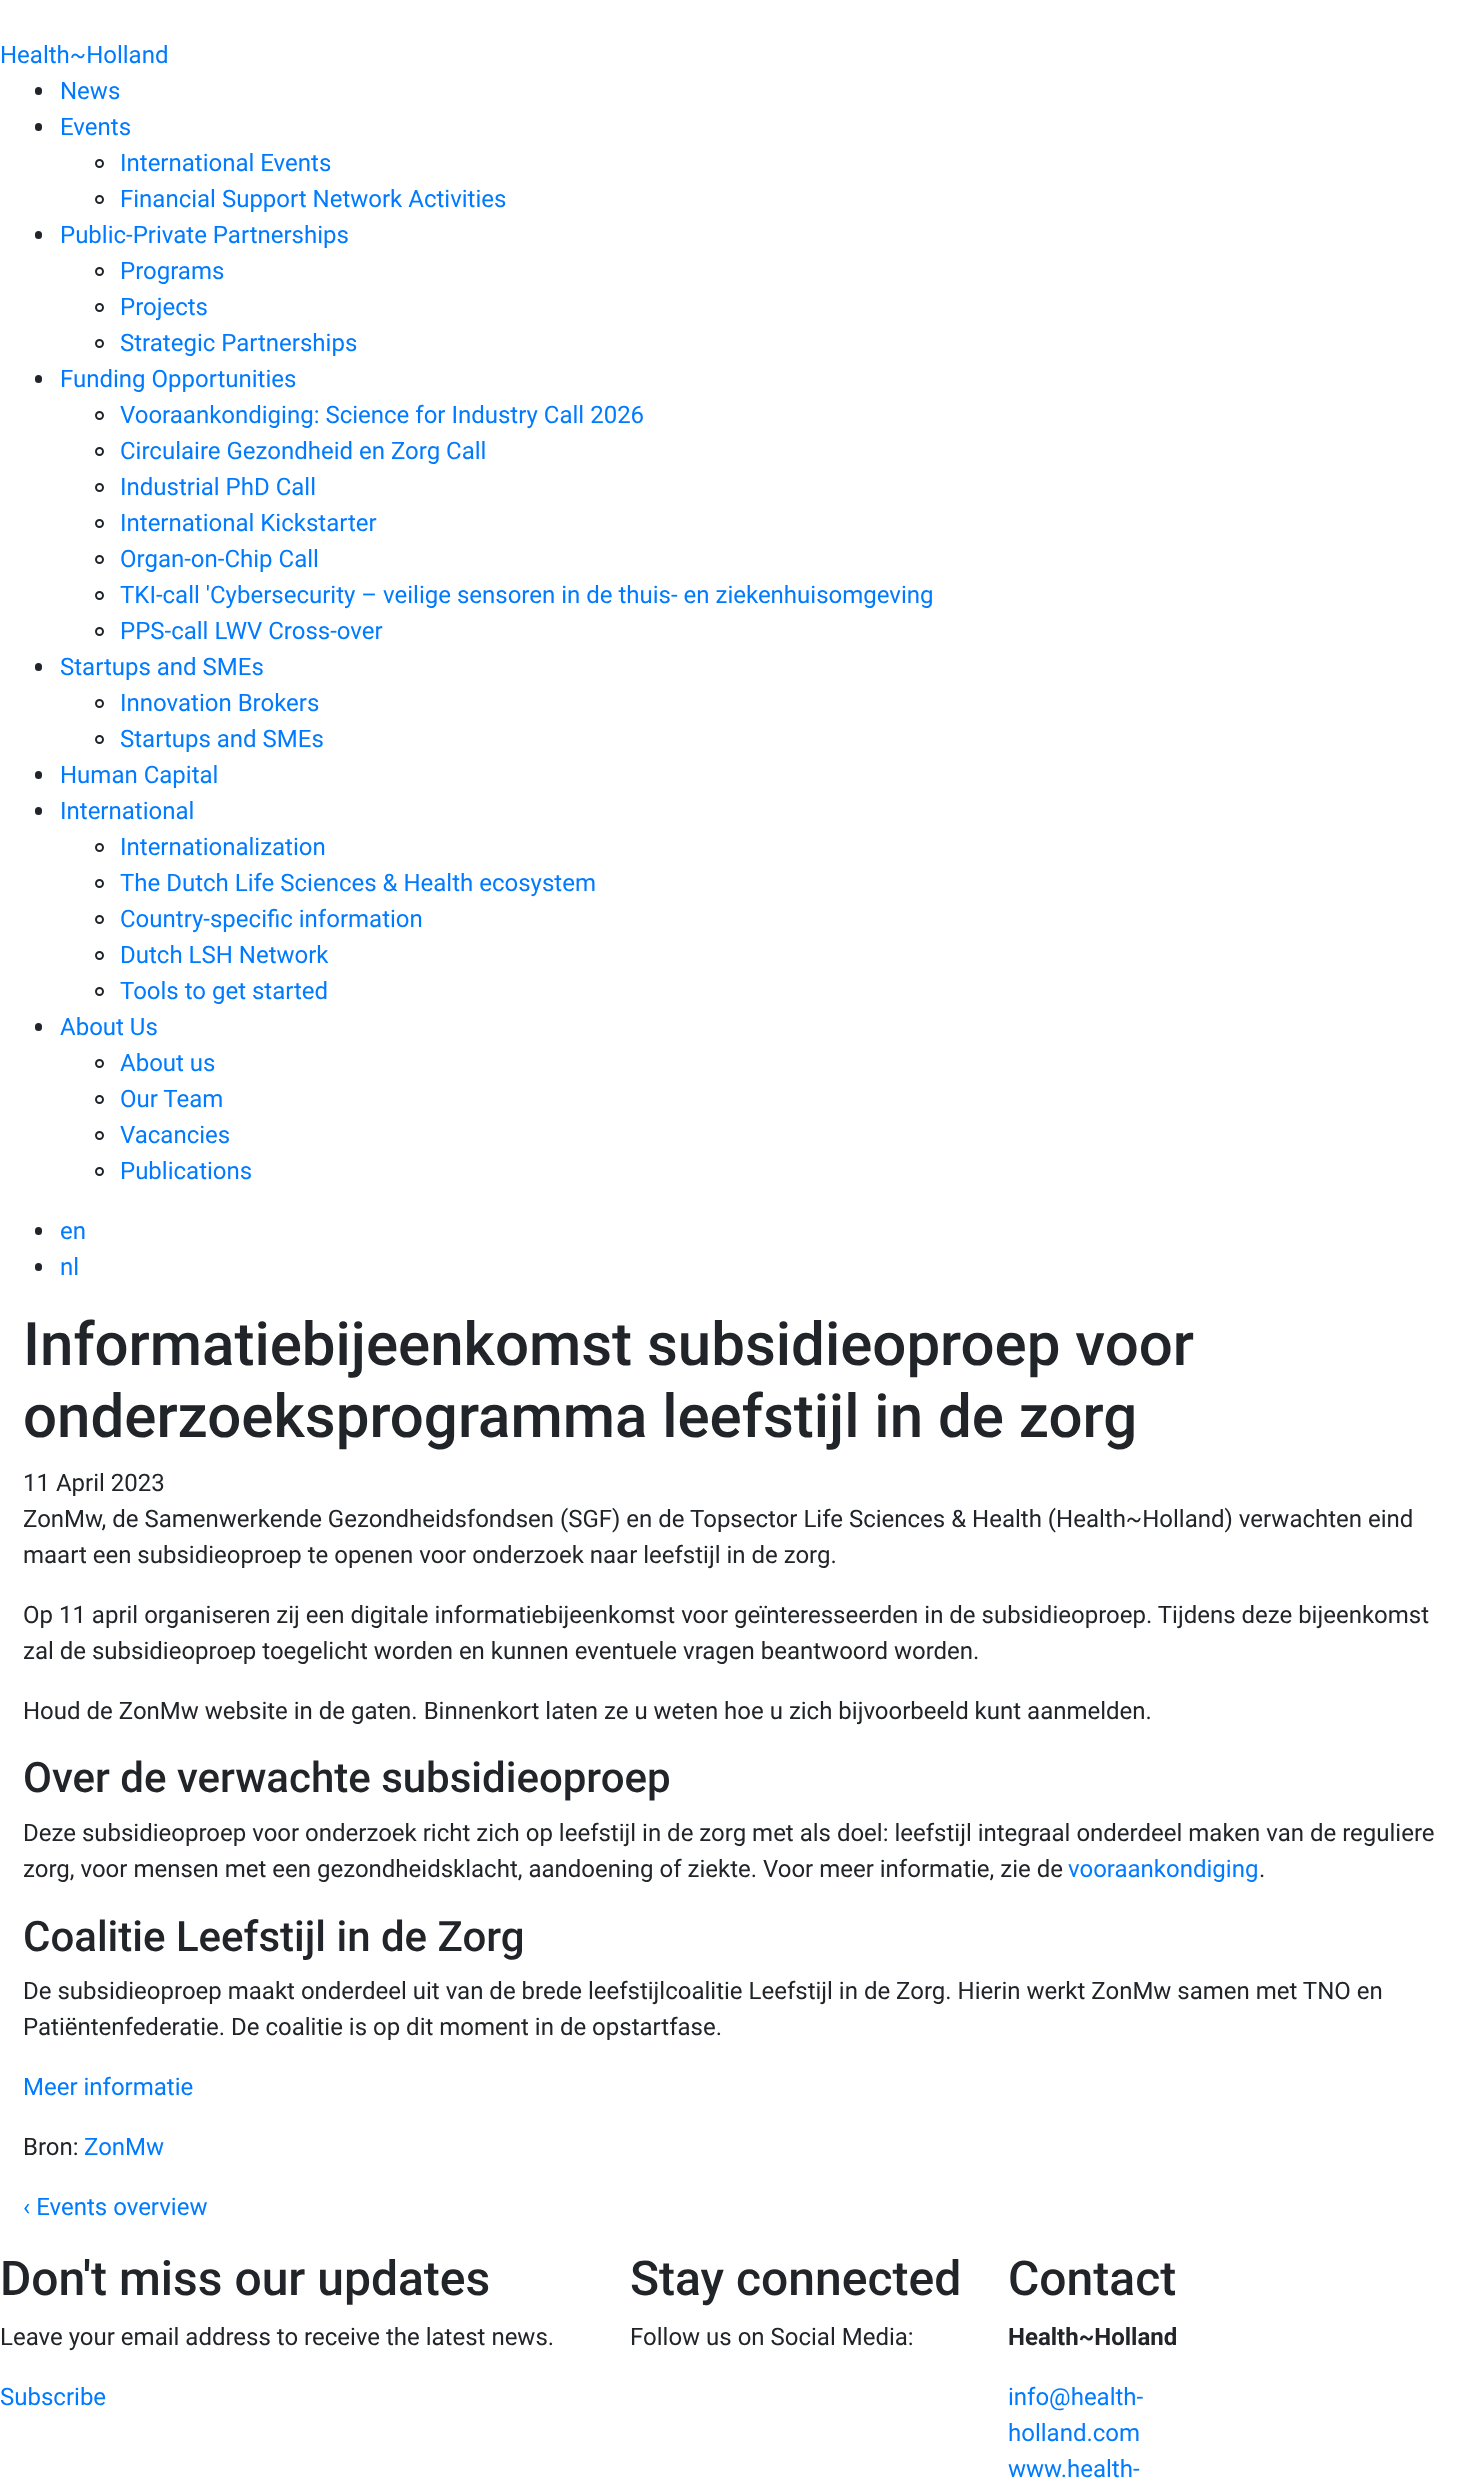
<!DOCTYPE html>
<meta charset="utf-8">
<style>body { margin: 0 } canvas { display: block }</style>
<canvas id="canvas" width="1467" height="2483"></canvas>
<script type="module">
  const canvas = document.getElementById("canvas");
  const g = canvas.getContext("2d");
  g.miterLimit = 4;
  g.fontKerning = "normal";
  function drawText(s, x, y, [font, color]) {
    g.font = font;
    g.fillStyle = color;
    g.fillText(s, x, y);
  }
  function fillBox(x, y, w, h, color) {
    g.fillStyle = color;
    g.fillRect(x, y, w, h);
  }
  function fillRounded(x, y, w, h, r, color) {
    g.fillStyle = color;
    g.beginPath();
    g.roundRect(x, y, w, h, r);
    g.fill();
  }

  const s1 = ["24px Roboto", "#007BFF"];
  const s2 = ["500 60px Roboto", "#212529"];
  const s3 = ["24px Roboto", "#212529"];
  const s4 = ["500 42px Roboto", "#212529"];
  const s5 = ["500 48px Roboto", "#212529"];
  const s6 = ["bold 24px Roboto", "#212529"];

  fillBox(0, 0, 1467, 2483, "#FFFFFF");
  drawText("Health~Holland", 0, 63, s1);
  fillRounded(35, 87, 7, 8, 3.5, "#212529");
  drawText("News", 60, 99, s1);
  fillRounded(35, 123, 7, 8, 3.5, "#212529");
  drawText("Events", 60, 135, s1);
  g.beginPath();
  g.arc(99.5, 163.5, 3.5, 0, Math.PI * 2);
  g.strokeStyle = "#212529";
  g.lineWidth = 2;
  g.stroke();
  drawText("International Events", 120, 171, s1);
  g.beginPath();
  g.arc(99.5, 199.5, 3.5, 0, Math.PI * 2);
  g.stroke();
  drawText("Financial Support Network Activities", 120, 207, s1);
  fillRounded(35, 231, 7, 8, 3.5, "#212529");
  drawText("Public-Private Partnerships", 60, 243, s1);
  g.beginPath();
  g.arc(99.5, 271.5, 3.5, 0, Math.PI * 2);
  g.stroke();
  drawText("Programs", 120, 279, s1);
  g.beginPath();
  g.arc(99.5, 307.5, 3.5, 0, Math.PI * 2);
  g.stroke();
  drawText("Projects", 120, 315, s1);
  g.beginPath();
  g.arc(99.5, 343.5, 3.5, 0, Math.PI * 2);
  g.stroke();
  drawText("Strategic Partnerships", 120, 351, s1);
  fillRounded(35, 375, 7, 8, 3.5, "#212529");
  drawText("Funding Opportunities", 60, 387, s1);
  g.beginPath();
  g.arc(99.5, 415.5, 3.5, 0, Math.PI * 2);
  g.stroke();
  drawText("Vooraankondiging: Science for Industry Call 2026", 120, 423, s1);
  g.beginPath();
  g.arc(99.5, 451.5, 3.5, 0, Math.PI * 2);
  g.stroke();
  drawText("Circulaire Gezondheid en Zorg Call", 120, 459, s1);
  g.beginPath();
  g.arc(99.5, 487.5, 3.5, 0, Math.PI * 2);
  g.stroke();
  drawText("Industrial PhD Call", 120, 495, s1);
  g.beginPath();
  g.arc(99.5, 523.5, 3.5, 0, Math.PI * 2);
  g.stroke();
  drawText("International Kickstarter", 120, 531, s1);
  g.beginPath();
  g.arc(99.5, 559.5, 3.5, 0, Math.PI * 2);
  g.stroke();
  drawText("Organ-on-Chip Call", 120, 567, s1);
  g.beginPath();
  g.arc(99.5, 595.5, 3.5, 0, Math.PI * 2);
  g.stroke();
  drawText("TKI-call 'Cybersecurity – veilige sensoren in de thuis- en ziekenhuisomgeving", 120, 603, s1);
  g.beginPath();
  g.arc(99.5, 631.5, 3.5, 0, Math.PI * 2);
  g.stroke();
  drawText("PPS-call LWV Cross-over", 120, 639, s1);
  fillRounded(35, 663, 7, 8, 3.5, "#212529");
  drawText("Startups and SMEs", 60, 675, s1);
  g.beginPath();
  g.arc(99.5, 703.5, 3.5, 0, Math.PI * 2);
  g.stroke();
  drawText("Innovation Brokers", 120, 711, s1);
  g.beginPath();
  g.arc(99.5, 739.5, 3.5, 0, Math.PI * 2);
  g.stroke();
  drawText("Startups and SMEs", 120, 747, s1);
  fillRounded(35, 771, 7, 8, 3.5, "#212529");
  drawText("Human Capital", 60, 783, s1);
  fillRounded(35, 807, 7, 8, 3.5, "#212529");
  drawText("International", 60, 819, s1);
  g.beginPath();
  g.arc(99.5, 847.5, 3.5, 0, Math.PI * 2);
  g.stroke();
  drawText("Internationalization", 120, 855, s1);
  g.beginPath();
  g.arc(99.5, 883.5, 3.5, 0, Math.PI * 2);
  g.stroke();
  drawText("The Dutch Life Sciences & Health ecosystem", 120, 891, s1);
  g.beginPath();
  g.arc(99.5, 919.5, 3.5, 0, Math.PI * 2);
  g.stroke();
  drawText("Country-specific information", 120, 927, s1);
  g.beginPath();
  g.arc(99.5, 955.5, 3.5, 0, Math.PI * 2);
  g.stroke();
  drawText("Dutch LSH Network", 120, 963, s1);
  g.beginPath();
  g.arc(99.5, 991.5, 3.5, 0, Math.PI * 2);
  g.stroke();
  drawText("Tools to get started", 120, 999, s1);
  fillRounded(35, 1023, 7, 8, 3.5, "#212529");
  drawText("About Us", 60, 1035, s1);
  g.beginPath();
  g.arc(99.5, 1063.5, 3.5, 0, Math.PI * 2);
  g.stroke();
  drawText("About us", 120, 1071, s1);
  g.beginPath();
  g.arc(99.5, 1099.5, 3.5, 0, Math.PI * 2);
  g.stroke();
  drawText("Our Team", 120, 1107, s1);
  g.beginPath();
  g.arc(99.5, 1135.5, 3.5, 0, Math.PI * 2);
  g.stroke();
  drawText("Vacancies", 120, 1143, s1);
  g.beginPath();
  g.arc(99.5, 1171.5, 3.5, 0, Math.PI * 2);
  g.stroke();
  drawText("Publications", 120, 1179, s1);
  fillRounded(35, 1227, 7, 8, 3.5, "#212529");
  drawText("en", 60, 1239, s1);
  fillRounded(35, 1263, 7, 8, 3.5, "#212529");
  drawText("nl", 60, 1275, s1);
  drawText("Informatiebijeenkomst subsidieoproep voor", 23, 1365, s2);
  drawText("onderzoeksprogramma leefstijl in de zorg", 23, 1437, s2);
  drawText("11 April 2023", 23, 1491, s3);
  drawText("ZonMw, de Samenwerkende Gezondheidsfondsen (SGF) en de Topsector Life Sciences & Health (Health~Holland) verwachten eind", 23, 1527, s3);
  drawText("maart een subsidieoproep te openen voor onderzoek naar leefstijl in de zorg.", 23, 1563, s3);
  drawText("Op 11 april organiseren zij een digitale informatiebijeenkomst voor geïnteresseerden in de subsidieoproep. Tijdens deze bijeenkomst", 23, 1623, s3);
  drawText("zal de subsidieoproep toegelicht worden en kunnen eventuele vragen beantwoord worden.", 23, 1659, s3);
  drawText("Houd de ZonMw website in de gaten. Binnenkort laten ze u weten hoe u zich bijvoorbeeld kunt aanmelden.", 23, 1719, s3);
  drawText("Over de verwachte subsidieoproep", 23, 1792, s4);
  drawText("Deze subsidieoproep voor onderzoek richt zich op leefstijl in de zorg met als doel: leefstijl integraal onderdeel maken van de reguliere", 23, 1841, s3);
  drawText("zorg, voor mensen met een gezondheidsklacht, aandoening of ziekte. Voor meer informatie, zie de", 23, 1877, s3);
  drawText("vooraankondiging", 1068, 1877, s1);
  drawText(".", 1259, 1877, s3);
  drawText("Coalitie Leefstijl in de Zorg", 23, 1951, s4);
  drawText("De subsidieoproep maakt onderdeel uit van de brede leefstijlcoalitie Leefstijl in de Zorg. Hierin werkt ZonMw samen met TNO en", 23, 1999, s3);
  drawText("Patiëntenfederatie. De coalitie is op dit moment in de opstartfase.", 23, 2035, s3);
  drawText("Meer informatie", 23, 2095, s1);
  drawText("Bron:", 23, 2155, s3);
  drawText("ZonMw", 84, 2155, s1);
  drawText("‹ Events overview", 23, 2215, s1);
  drawText("Don't miss our updates", 0, 2295, s5);
  drawText("Leave your email address to receive the latest news.", 0, 2345, s3);
  drawText("Subscribe", 0, 2405, s1);
  drawText("Stay connected", 630, 2295, s5);
  drawText("Follow us on Social Media:", 630, 2345, s3);
  drawText("Contact", 1008, 2295, s5);
  drawText("Health~Holland", 1008, 2345, s6);
  drawText("info@health-", 1008, 2405, s1);
  drawText("holland.com", 1008, 2441, s1);
  drawText("www.health-", 1008, 2477, s1);
</script>
